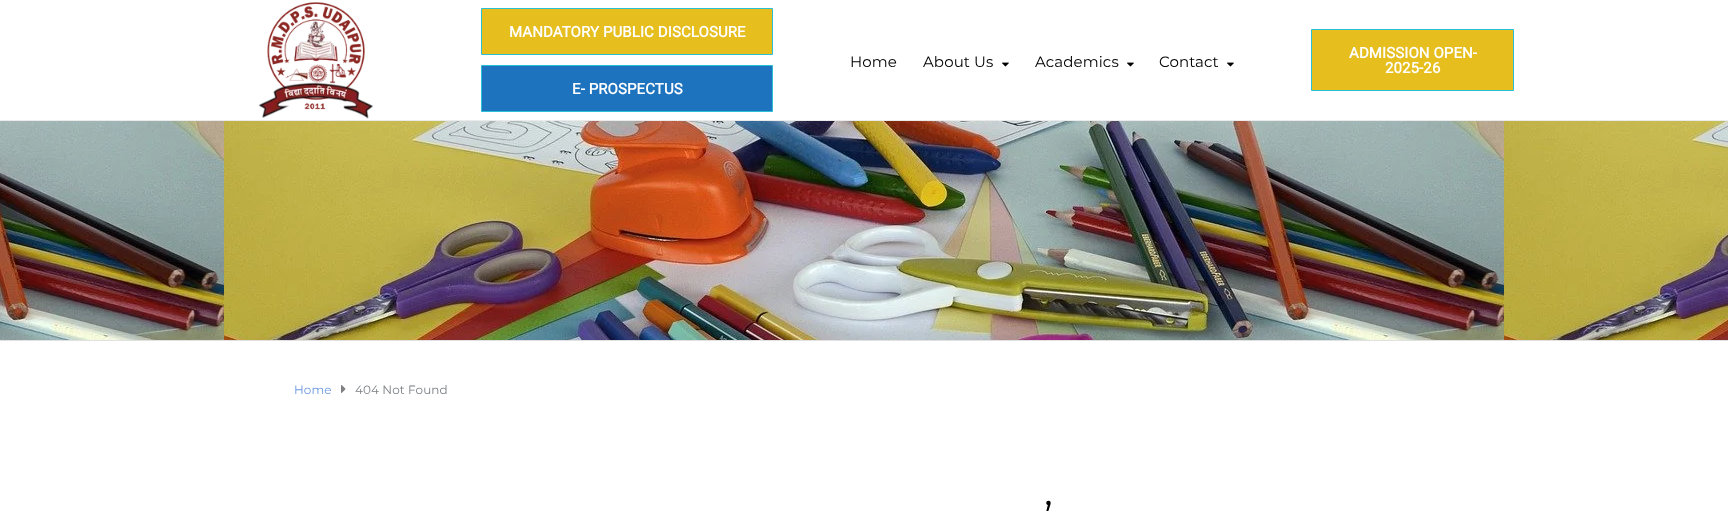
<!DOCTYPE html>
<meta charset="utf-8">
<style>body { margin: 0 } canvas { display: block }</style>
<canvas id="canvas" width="1728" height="518"></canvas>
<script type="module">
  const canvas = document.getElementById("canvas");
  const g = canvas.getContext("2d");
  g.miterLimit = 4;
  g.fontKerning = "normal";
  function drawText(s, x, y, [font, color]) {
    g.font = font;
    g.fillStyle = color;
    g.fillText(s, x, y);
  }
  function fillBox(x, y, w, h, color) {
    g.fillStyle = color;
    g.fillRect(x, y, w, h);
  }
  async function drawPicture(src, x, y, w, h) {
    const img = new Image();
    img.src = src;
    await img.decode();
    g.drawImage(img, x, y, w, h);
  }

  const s1 = ["bold 15px Roboto", "#FFFFFF"];
  const s2 = ["15px Montserrat", "#000000"];
  const s3 = ["12px Montserrat", "#6C98E1"];
  const s4 = ["12px Montserrat", "#7B8085"];
  const s5 = ["42px Montserrat", "#000000"];

  fillBox(0, 0, 1728, 518, "#FFFFFF");
  fillBox(0, 120, 1728, 1, "#EBEBEB");
  await drawPicture("pic1.png", 258, 2, 116, 117);
  g.fillStyle = "#E6BE1E";
  g.beginPath();
  g.rect(481.5, 8.5, 291, 46);
  g.fill();
  g.strokeStyle = "#2ABFD4";
  g.stroke();
  g.letterSpacing = "0.1px";
  drawText("MANDATORY PUBLIC DISCLOSURE", 509, 37, s1);
  g.fillStyle = "#1E73BE";
  g.beginPath();
  g.rect(481.5, 65.5, 291, 46);
  g.fill();
  g.stroke();
  drawText("E- PROSPECTUS", 572, 94, s1);
  drawText("Home", 850, 67, s2);
  drawText("About Us", 923, 67, s2);
  await drawPicture("pic2.png", 1002, 62, 7, 5);
  drawText("Academics", 1035, 67, s2);
  await drawPicture("pic2.png", 1127, 62, 7, 5);
  drawText("Contact", 1159, 67, s2);
  await drawPicture("pic2.png", 1227, 62, 7, 5);
  g.fillStyle = "#E6BE1E";
  g.beginPath();
  g.rect(1311.5, 29.5, 202, 61);
  g.fill();
  g.stroke();
  drawText("ADMISSION OPEN-", 1349, 58, s1);
  drawText("2025-26", 1385, 73, s1);
  await drawPicture("pic3.png", 0, 121, 1728, 219);
  fillBox(0, 340, 1728, 1, "#E1E1E1");
  drawText("Home", 294, 394, s3);
  await drawPicture("pic4.png", 341, 385, 5, 8);
  drawText("404 Not Found", 355, 394, s4);
  drawText("’", 1044, 532, s5);
</script>
